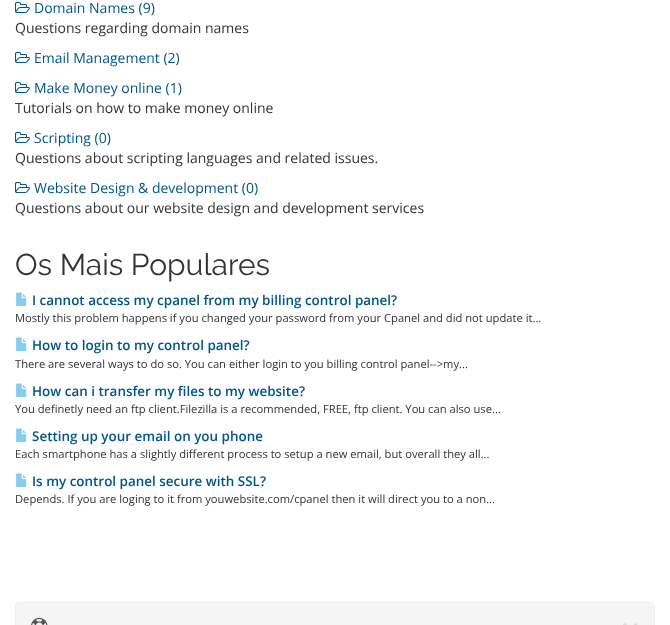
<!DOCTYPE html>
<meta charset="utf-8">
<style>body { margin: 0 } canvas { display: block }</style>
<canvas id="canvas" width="670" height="625"></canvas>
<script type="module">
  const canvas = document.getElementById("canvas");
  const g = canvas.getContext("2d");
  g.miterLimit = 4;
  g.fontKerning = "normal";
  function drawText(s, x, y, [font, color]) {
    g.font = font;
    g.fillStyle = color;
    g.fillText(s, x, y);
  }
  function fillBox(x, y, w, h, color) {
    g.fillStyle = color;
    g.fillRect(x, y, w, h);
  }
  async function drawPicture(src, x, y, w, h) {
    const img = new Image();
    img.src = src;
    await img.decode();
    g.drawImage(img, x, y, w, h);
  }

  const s1 = ["14px Open Sans", "#005588"];
  const s2 = ["14px Open Sans", "#333333"];
  const s3 = ["30px Raleway", "#333333"];
  const s4 = ["600 13.45px Open Sans", "#005588"];
  const s5 = ["11.2px Open Sans", "#333333"];

  fillBox(0, 0, 670, 625, "#FFFFFF");
  await drawPicture("pic1.png", 15, 2, 15, 11);
  drawText("Domain Names (9)", 34, 13, s1);
  drawText("Questions regarding domain names", 15, 33, s2);
  await drawPicture("pic1.png", 15, 52, 15, 11);
  drawText("Email Management (2)", 34, 63, s1);
  await drawPicture("pic1.png", 15, 82, 15, 11);
  drawText("Make Money online (1)", 34, 93, s1);
  drawText("Tutorials on how to make money online", 15, 113, s2);
  await drawPicture("pic1.png", 15, 132, 15, 11);
  drawText("Scripting (0)", 34, 143, s1);
  drawText("Questions about scripting languages and related issues.", 15, 163, s2);
  await drawPicture("pic1.png", 15, 182, 15, 11);
  drawText("Website Design & development (0)", 34, 193, s1);
  drawText("Questions about our website design and development services", 15, 213, s2);
  drawText("Os Mais Populares", 15, 275, s3);
  await drawPicture("pic2.png", 16, 292, 11, 14);
  drawText("I cannot access my cpanel from my billing control panel?", 32, 305, s4);
  drawText("Mostly this problem happens if you changed your password from your Cpanel and did not update it...", 15, 322, s5);
  await drawPicture("pic2.png", 16, 337, 11, 14);
  drawText("How to login to my control panel?", 32, 350, s4);
  drawText("There are several ways to do so. You can either login to you billing control panel-->my...", 15, 368, s5);
  await drawPicture("pic2.png", 16, 383, 11, 14);
  drawText("How can i transfer my files to my website?", 32, 396, s4);
  drawText("You definetly need an ftp client.Filezilla is a recommended, FREE, ftp client. You can also use...", 15, 413, s5);
  await drawPicture("pic2.png", 16, 428, 11, 14);
  drawText("Setting up your email on you phone", 32, 441, s4);
  drawText("Each smartphone has a slightly different process to setup a new email, but overall they all...", 15, 458, s5);
  await drawPicture("pic2.png", 16, 473, 11, 14);
  drawText("Is my control panel secure with SSL?", 32, 486, s4);
  drawText("Depends. If you are loging to it from youwebsite.com/cpanel then it will direct you to a non...", 15, 503, s5);
  g.beginPath();
  g.roundRect(15.5, 602.5, 639, 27, 3.5);
  g.strokeStyle = "#EEEEEE";
  g.stroke();
  g.fillStyle = "#F5F5F5";
  g.beginPath();
  g.moveTo(19, 603);
  g.lineTo(651, 603);
  g.bezierCurveTo(652.5, 603, 654, 604.5, 654, 606);
  g.lineTo(654, 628);
  g.lineTo(16, 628);
  g.lineTo(16, 606);
  g.bezierCurveTo(16, 604.5, 17.5, 603, 19, 603);
  g.closePath();
  g.fill();
  await drawPicture("pic3.png", 31, 617, 17, 8);
  await drawPicture("pic4.png", 623, 623, 15, 2);
</script>
